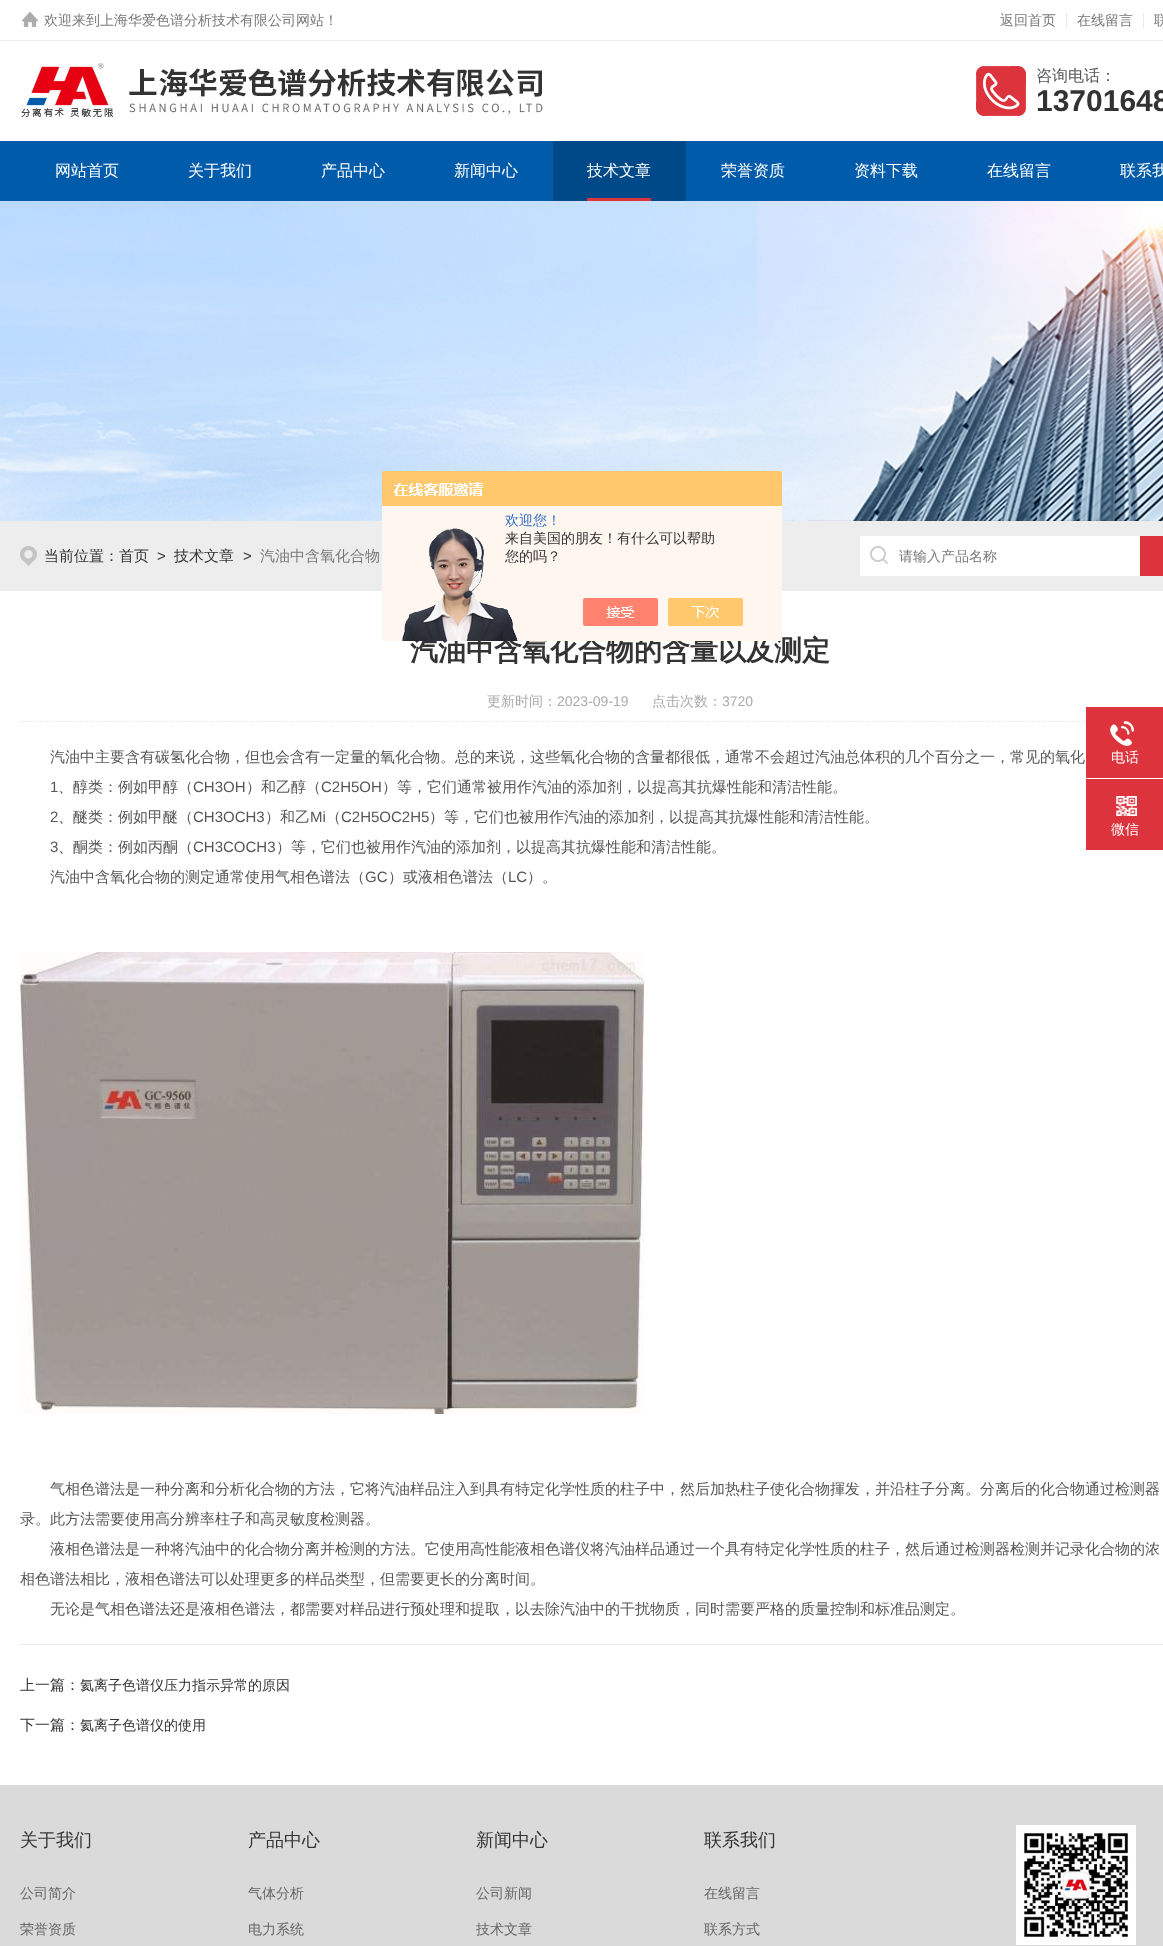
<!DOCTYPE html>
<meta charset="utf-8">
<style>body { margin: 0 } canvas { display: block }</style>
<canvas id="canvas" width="1163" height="1946"></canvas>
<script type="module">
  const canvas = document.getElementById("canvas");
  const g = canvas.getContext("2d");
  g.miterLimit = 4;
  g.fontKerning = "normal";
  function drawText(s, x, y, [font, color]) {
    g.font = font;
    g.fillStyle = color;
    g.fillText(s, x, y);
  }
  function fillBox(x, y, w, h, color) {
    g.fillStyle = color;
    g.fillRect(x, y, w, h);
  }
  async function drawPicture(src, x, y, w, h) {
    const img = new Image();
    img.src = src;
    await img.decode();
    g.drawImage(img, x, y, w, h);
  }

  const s1 = ["500 14px WenQuanYi Zen Hei", "#797979"];
  const s2 = ["500 16px WenQuanYi Zen Hei", "#565656"];
  const s3 = ["bold 30px Liberation Sans", "#333333"];
  const s4 = ["500 16px WenQuanYi Zen Hei", "#FFFFFF"];
  const s5 = ["bold 28px WenQuanYi Zen Hei", "#333333"];
  const s6 = ["500 14px WenQuanYi Zen Hei", "#2E6EC6"];
  const s7 = ["500 14px WenQuanYi Zen Hei", "#333333"];
  const s8 = ["500 15px WenQuanYi Zen Hei", "#333333"];
  const s9 = ["15px Liberation Sans", "#333333"];
  const s10 = ["500 15px WenQuanYi Zen Hei", "#797979"];
  const s11 = ["500 14px WenQuanYi Zen Hei", "#AAAAAA"];
  const s12 = ["14px Liberation Sans", "#AAAAAA"];
  const s13 = ["500 15px WenQuanYi Zen Hei", "#565656"];
  const s14 = ["15px Liberation Sans", "#565656"];
  const s15 = ["500 14px WenQuanYi Zen Hei", "#FFFFFF"];
  const s16 = ["500 18px WenQuanYi Zen Hei", "#333333"];
  const s17 = ["500 14px WenQuanYi Zen Hei", "#666666"];

  fillBox(0, 0, 1163, 1946, "#FFFFFF");
  fillBox(0, 40, 1163, 1, "#EDEDED");
  await drawPicture("pic1.png", 22, 12, 16, 15);
  drawText("欢迎来到上海华爱色谱分析技术有限公司网站！", 44, 25, s1);
  drawText("返回首页", 1000, 25, s1);
  fillBox(1066, 13, 1, 15, "#EAEAEA");
  drawText("在线留言", 1077, 25, s1);
  fillBox(1143, 13, 1, 15, "#EAEAEA");
  drawText("联", 1154, 25, s1);
  await drawPicture("pic2.png", 21, 63, 522, 54);
  await drawPicture("pic3.png", 976, 66, 50, 50);
  drawText("咨询电话：", 1036, 81, s2);
  drawText("13701648", 1036, 111, s3);
  fillBox(0, 141, 1163, 60, "#005BAA");
  drawText("网站首页", 55, 176, s4);
  drawText("关于我们", 188, 176, s4);
  drawText("产品中心", 321, 176, s4);
  drawText("新闻中心", 454, 176, s4);
  fillBox(553, 141, 133, 60, "#004988");
  drawText("技术文章", 587, 176, s4);
  fillBox(587, 198, 64, 3, "#DD333C");
  drawText("荣誉资质", 721, 176, s4);
  drawText("资料下载", 854, 176, s4);
  drawText("在线留言", 987, 176, s4);
  drawText("联系我", 1120, 176, s4);
  await drawPicture("pic4.png", 0, 201, 1163, 320);
  fillBox(0, 521, 1163, 70, "#EDEDED");
  drawText("汽油中含氧化合物的含量以及测定", 410, 660, s5);
  await drawPicture("pic5.png", 382, 471, 400, 170);
  drawText("欢迎您！", 505, 525, s6);
  drawText("来自美国的朋友！有什么可以帮助", 505, 543, s7);
  drawText("您的吗？", 505, 561, s7);
  await drawPicture("pic6.png", 20, 546, 17, 20);
  drawText("当前位置：首页", 44, 561, s8);
  drawText(">", 157, 561, s9);
  drawText("技术文章", 174, 561, s8);
  drawText(">", 243, 561, s9);
  drawText("汽油中含氧化合物", 260, 561, s10);
  fillBox(860, 536, 280, 40, "#FFFFFF");
  await drawPicture("pic7.png", 870, 546, 18, 18);
  drawText("请输入产品名称", 899, 561, s1);
  fillBox(1140, 536, 23, 40, "#DD333C");
  g.beginPath();
  g.moveTo(20, 721.5);
  g.lineTo(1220, 721.5);
  g.strokeStyle = "#EAEAEA";
  g.setLineDash([3, 2.01]);
  g.stroke();
  drawText("更新时间：", 487, 706, s11);
  drawText("2023-09-19", 557, 706, s12);
  drawText("点击次数：", 652, 706, s11);
  drawText("3720", 722, 706, s12);
  drawText("汽油中主要含有碳氢化合物，但也会含有一定量的氧化合物。总的来说，这些氧化合物的含量都很低，通常不会超过汽油总体积的几个百分之一，常见的氧化", 50, 762, s13);
  drawText("1", 50, 792, s14);
  drawText("、醇类：例如甲醇（", 58, 792, s13);
  drawText("CH3OH", 193, 792, s14);
  drawText("）和乙醇（", 246, 792, s13);
  drawText("C2H5OH", 321, 792, s14);
  drawText("）等，它们通常被用作汽油的添加剂，以提高其抗爆性能和清洁性能。", 382, 792, s13);
  drawText("2", 50, 822, s14);
  drawText("、醚类：例如甲醚（", 58, 822, s13);
  drawText("CH3OCH3", 193, 822, s14);
  drawText("）和乙", 265, 822, s13);
  drawText("Mi", 310, 822, s14);
  drawText("（", 326, 822, s13);
  drawText("C2H5OC2H5", 341, 822, s14);
  drawText("）等，它们也被用作汽油的添加剂，以提高其抗爆性能和清洁性能。", 429, 822, s13);
  drawText("3", 50, 852, s14);
  drawText("、酮类：例如丙酮（", 58, 852, s13);
  drawText("CH3COCH3", 193, 852, s14);
  drawText("）等，它们也被用作汽油的添加剂，以提高其抗爆性能和清洁性能。", 276, 852, s13);
  drawText("汽油中含氧化合物的测定通常使用气相色谱法（", 50, 882, s13);
  drawText("GC", 365, 882, s14);
  drawText("）或液相色谱法（", 388, 882, s13);
  drawText("LC", 508, 882, s14);
  drawText("）。", 527, 882, s13);
  await drawPicture("pic8.png", 20, 952, 624, 462);
  drawText("气相色谱法是一种分离和分析化合物的方法，它将汽油样品注入到具有特定化学性质的柱子中，然后加热柱子使化合物揮发，并沿柱子分离。分离后的化合物通过检测器", 50, 1494, s13);
  drawText("录。此方法需要使用高分辨率柱子和高灵敏度检测器。", 20, 1524, s13);
  drawText("液相色谱法是一种将汽油中的化合物分离并检测的方法。它使用高性能液相色谱仪将汽油样品通过一个具有特定化学性质的柱子，然后通过检测器检测并记录化合物的浓", 50, 1554, s13);
  drawText("相色谱法相比，液相色谱法可以处理更多的样品类型，但需要更长的分离时间。", 20, 1584, s13);
  drawText("无论是气相色谱法还是液相色谱法，都需要对样品进行预处理和提取，以去除汽油中的干扰物质，同时需要严格的质量控制和标准品测定。", 50, 1614, s13);
  fillBox(20, 1644, 1143, 1, "#EAEAEA");
  drawText("上一篇：", 20, 1690, s8);
  drawText("氦离子色谱仪压力指示异常的原因", 80, 1690, s7);
  drawText("下一篇：", 20, 1730, s8);
  drawText("氦离子色谱仪的使用", 80, 1730, s7);
  fillBox(1086, 707, 77, 71, "#DD333C");
  await drawPicture("pic9.png", 1110, 721, 24, 25);
  drawText("电话", 1111, 762, s15);
  fillBox(1086, 779, 77, 71, "#DD333C");
  await drawPicture("pic10.png", 1116, 796, 21, 20);
  drawText("微信", 1111, 834, s15);
  fillBox(0, 1785, 1163, 161, "#DADADA");
  drawText("关于我们", 20, 1846, s16);
  drawText("公司简介", 20, 1898, s17);
  drawText("荣誉资质", 20, 1934, s17);
  drawText("产品中心", 248, 1846, s16);
  drawText("气体分析", 248, 1898, s17);
  drawText("电力系统", 248, 1934, s17);
  drawText("新闻中心", 476, 1846, s16);
  drawText("公司新闻", 476, 1898, s17);
  drawText("技术文章", 476, 1934, s17);
  drawText("联系我们", 704, 1846, s16);
  drawText("在线留言", 704, 1898, s17);
  drawText("联系方式", 704, 1934, s17);
  await drawPicture("pic11.png", 1016, 1825, 120, 120);
</script>
